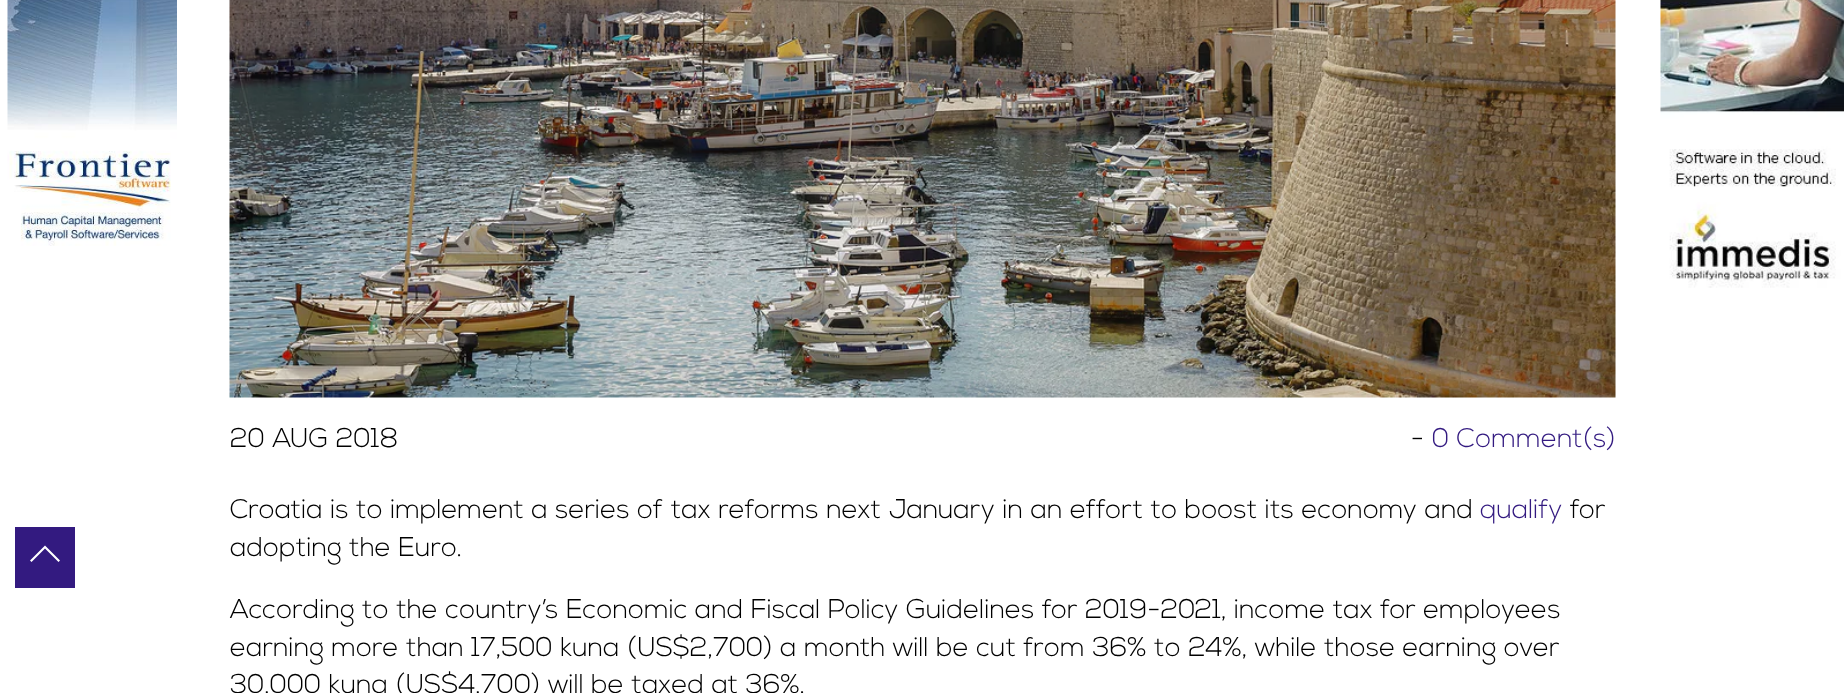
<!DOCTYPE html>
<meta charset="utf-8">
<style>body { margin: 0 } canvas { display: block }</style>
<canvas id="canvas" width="1844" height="693"></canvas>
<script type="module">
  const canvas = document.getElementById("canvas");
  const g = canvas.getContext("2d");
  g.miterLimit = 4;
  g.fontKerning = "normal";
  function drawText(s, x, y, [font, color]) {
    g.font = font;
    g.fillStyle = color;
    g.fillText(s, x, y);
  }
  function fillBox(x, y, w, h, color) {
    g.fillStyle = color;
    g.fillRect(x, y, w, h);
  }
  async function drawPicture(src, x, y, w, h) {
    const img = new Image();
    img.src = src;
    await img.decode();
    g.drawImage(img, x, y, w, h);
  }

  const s1 = ["300 27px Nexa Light", "#000000"];
  const s2 = ["300 27px Nexa Light", "#331A80"];

  fillBox(0, 0, 1844, 693, "#FFFFFF");
  fillBox(15, 527, 60, 61, "#331A80");
  g.fillStyle = "#FFFFFF";
  g.beginPath();
  g.moveTo(30, 560.5);
  g.lineTo(45, 545.5);
  g.lineTo(60, 560.5);
  g.lineTo(58.5, 562);
  g.lineTo(45, 548.5);
  g.lineTo(31.5, 562);
  g.closePath();
  g.fill();
  await drawPicture("pic1.png", 7, 0, 170, 246);
  await drawPicture("pic2.png", 1660, 0, 184, 288);
  await drawPicture("pic3.png", 229, 0, 1387, 398);
  drawText("20 AUG 2018", 230, 447, s1);
  drawText("-", 1411, 447, s1);
  drawText("0 Comment(s)", 1432, 447, s2);
  drawText("Croatia is to implement a series of tax reforms next January in an effort to boost its economy and", 230, 518, s1);
  drawText("qualify", 1480, 518, s2);
  drawText("for", 1570, 518, s1);
  drawText("adopting the Euro.", 230, 556, s1);
  drawText("According to the country’s Economic and Fiscal Policy Guidelines for 2019-2021, income tax for employees", 230, 618, s1);
  drawText("earning more than 17,500 kuna (US$2,700) a month will be cut from 36% to 24%, while those earning over", 230, 656, s1);
  drawText("30,000 kuna (US$4,700) will be taxed at 36%.", 230, 693, s1);
</script>
